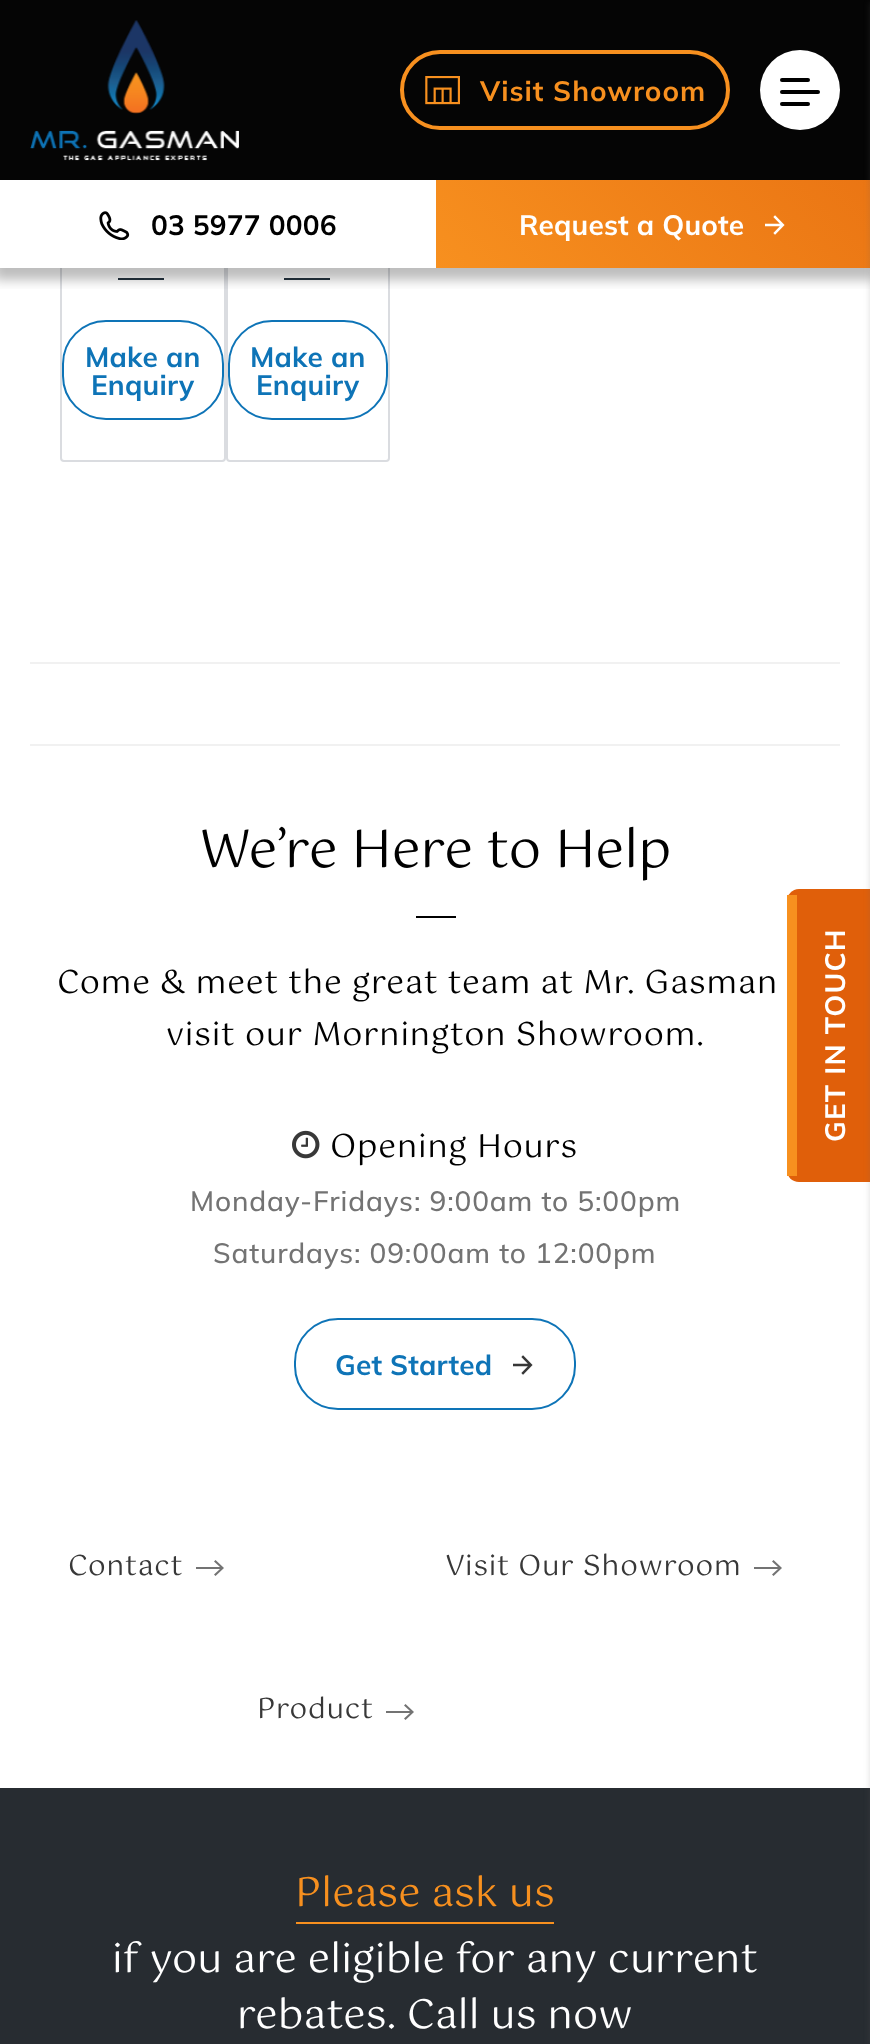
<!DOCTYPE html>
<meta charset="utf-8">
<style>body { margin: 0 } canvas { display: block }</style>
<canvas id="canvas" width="870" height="2044"></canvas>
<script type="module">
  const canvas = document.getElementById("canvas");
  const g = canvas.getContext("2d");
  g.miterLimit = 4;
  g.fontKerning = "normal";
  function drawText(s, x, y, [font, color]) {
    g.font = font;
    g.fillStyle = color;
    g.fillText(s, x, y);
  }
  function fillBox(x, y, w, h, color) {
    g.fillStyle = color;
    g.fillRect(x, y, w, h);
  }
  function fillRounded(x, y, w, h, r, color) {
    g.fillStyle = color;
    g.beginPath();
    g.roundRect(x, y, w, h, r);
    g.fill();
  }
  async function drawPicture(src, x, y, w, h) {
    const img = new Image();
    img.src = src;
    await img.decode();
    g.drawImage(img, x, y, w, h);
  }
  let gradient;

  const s1 = ["bold 28px Mulish", "#F7901F"];
  const s2 = ["bold 28px Mulish", "#000000"];
  const s3 = ["bold 28px Mulish", "#FFFFFF"];
  const s4 = ["bold 28px Mulish", "#0E74B7"];
  const s5 = ["52px Gotu", "#000000"];
  const s6 = ["32px Gotu", "#000000"];
  const s7 = ["500 28px Mulish", "#737373"];
  const s8 = ["28px Gotu", "#383838"];
  const s9 = ["40px Gotu", "#F7901F"];
  const s10 = ["40px Gotu", "#FFFFFF"];

  fillBox(0, 0, 870, 2044, "#FFFFFF");
  g.beginPath();
  g.roundRect(61, -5, 164, 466, 3);
  g.strokeStyle = "#DADCE0";
  g.lineWidth = 2;
  g.stroke();
  fillBox(118, 278, 46, 2, "#25333F");
  g.beginPath();
  g.roundRect(227, -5, 162, 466, 3);
  g.stroke();
  fillBox(284, 278, 46, 2, "#25333F");
  g.save();
  g.beginPath();
  g.rect(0, 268, 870, 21);
  g.clip();
  g.fillStyle = "rgba(0, 0, 0, 0.26)";
  g.filter = "blur(6px)";
  g.beginPath();
  g.rect(-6, 0, 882, 280);
  g.fill();
  g.filter = "none";
  g.restore();
  fillBox(0, 0, 870, 180, "rgba(0, 0, 0, 0.98)");
  await drawPicture("pic1.png", 30, 20, 209, 141);
  g.beginPath();
  g.roundRect(402, 52, 326, 76, 38);
  g.strokeStyle = "#F7901F";
  g.lineWidth = 4;
  g.stroke();
  await drawPicture("pic2.png", 425, 76, 35, 29);
  g.letterSpacing = "1px";
  drawText("Visit Showroom", 480, 101, s1);
  fillBox(60, 180, 330, 88, "#FFFFFF");
  await drawPicture("pic3.png", 99, 211, 31, 29);
  g.letterSpacing = "0.2px";
  drawText("03 5977 0006", 151, 235, s2);
  gradient = g.createLinearGradient(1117, -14, 623, 462);
  gradient.addColorStop(0, "#E05F0A");
  gradient.addColorStop(1, "#F7901F");
  g.fillStyle = gradient;
  g.fillRect(436, 180, 434, 88);
  drawText("Request a Quote", 519, 235, s3);
  await drawPicture("pic4.png", 765, 215, 20, 20);
  g.beginPath();
  g.arc(800, 90, 40, 0, Math.PI * 2);
  g.fill();
  fillRounded(780, 90, 40, 4, 2, "#000000");
  fillRounded(780, 78, 30, 4, 2, "#000000");
  fillRounded(780, 102, 30, 4, 2, "#000000");
  g.fillStyle = "#E05F0A";
  g.beginPath();
  g.moveTo(787, 1170);
  g.lineTo(787, 901);
  g.bezierCurveTo(787, 895, 792, 889, 799, 889);
  g.lineTo(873, 889);
  g.lineTo(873, 1182);
  g.lineTo(799, 1182);
  g.bezierCurveTo(792, 1182, 787, 1177, 787, 1170);
  g.closePath();
  g.fill();
  fillBox(0, 1788, 870, 256, "#272C31");
  g.fillStyle = "rgba(101, 101, 101, 0.22)";
  g.filter = "blur(3px)";
  g.beginPath();
  g.rect(870, 2, 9, 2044);
  g.fill();
  g.filter = "none";
  g.beginPath();
  g.roundRect(63, 321, 160, 98, 43);
  g.strokeStyle = "#0E74B7";
  g.lineWidth = 2;
  g.stroke();
  drawText("Make an", 85, 367, s4);
  drawText("Enquiry", 91, 395, s4);
  g.beginPath();
  g.roundRect(229, 321, 158, 98, 43);
  g.stroke();
  drawText("Make an", 250, 367, s4);
  drawText("Enquiry", 256, 395, s4);
  fillBox(30, 662, 810, 2, "#F1F1F1");
  fillBox(30, 744, 810, 2, "#F1F1F1");
  g.letterSpacing = "0px";
  drawText("We’re Here to Help", 199, 867, s5);
  fillBox(416, 916, 40, 2, "#000000");
  g.letterSpacing = "0.85px";
  drawText("Come & meet the great team at Mr. Gasman", 57, 993, s6);
  drawText("visit our Mornington Showroom.", 166, 1045, s6);
  await drawPicture("pic5.png", 292, 1130, 28, 29);
  drawText("Opening Hours", 330, 1157, s6);
  drawText("Monday-Fridays: 9:00am to 5:00pm", 190, 1211, s7);
  drawText("Saturdays: 09:00am to 12:00pm", 213, 1263, s7);
  g.beginPath();
  g.roundRect(295, 1319, 280, 90, 43);
  g.stroke();
  g.letterSpacing = "0.2px";
  drawText("Get Started", 335, 1375, s4);
  await drawPicture("pic6.png", 513, 1355, 20, 20);
  g.letterSpacing = "0.85px";
  drawText("Contact", 68, 1575, s8);
  g.fillStyle = "#737373";
  g.beginPath();
  g.moveTo(220, 1567);
  g.lineTo(214, 1561.5);
  g.lineTo(215.5, 1560);
  g.lineTo(224, 1568);
  g.lineTo(215.5, 1576);
  g.lineTo(214, 1574.5);
  g.lineTo(220, 1569);
  g.lineTo(196, 1569);
  g.lineTo(196, 1567);
  g.closePath();
  g.fill("evenodd");
  drawText("Visit Our Showroom", 445, 1575, s8);
  g.fillStyle = "#737373";
  g.beginPath();
  g.moveTo(778, 1567);
  g.lineTo(772, 1561.5);
  g.lineTo(773.5, 1560);
  g.lineTo(782, 1568);
  g.lineTo(773.5, 1576);
  g.lineTo(772, 1574.5);
  g.lineTo(778, 1569);
  g.lineTo(754, 1569);
  g.lineTo(754, 1567);
  g.closePath();
  g.fill("evenodd");
  drawText("Product", 257, 1718, s8);
  g.fillStyle = "#737373";
  g.beginPath();
  g.moveTo(410, 1711);
  g.lineTo(404, 1705.5);
  g.lineTo(405.5, 1704);
  g.lineTo(414, 1712);
  g.lineTo(405.5, 1720);
  g.lineTo(404, 1718.5);
  g.lineTo(410, 1713);
  g.lineTo(386, 1713);
  g.lineTo(386, 1711);
  g.closePath();
  g.fill("evenodd");
  fillBox(787, 895, 10, 281, "#F7901F");
  g.letterSpacing = "1.25px";
  g.font = "bold 28px Mulish";
  g.fillStyle = "#FFFFFF";
  g.save();
  g.translate(845, 1142);
  g.rotate(-90 * Math.PI / 180);
  g.fillText("GET IN TOUCH", 0, 0);
  g.restore();
  g.letterSpacing = "0.2px";
  drawText("Please ask us", 295, 1906, s9);
  fillBox(296, 1922, 258, 2, "#F7901F");
  drawText("if you are eligible for any current", 112, 1972, s10);
  drawText("rebates. Call us now", 237, 2028, s10);
</script>
